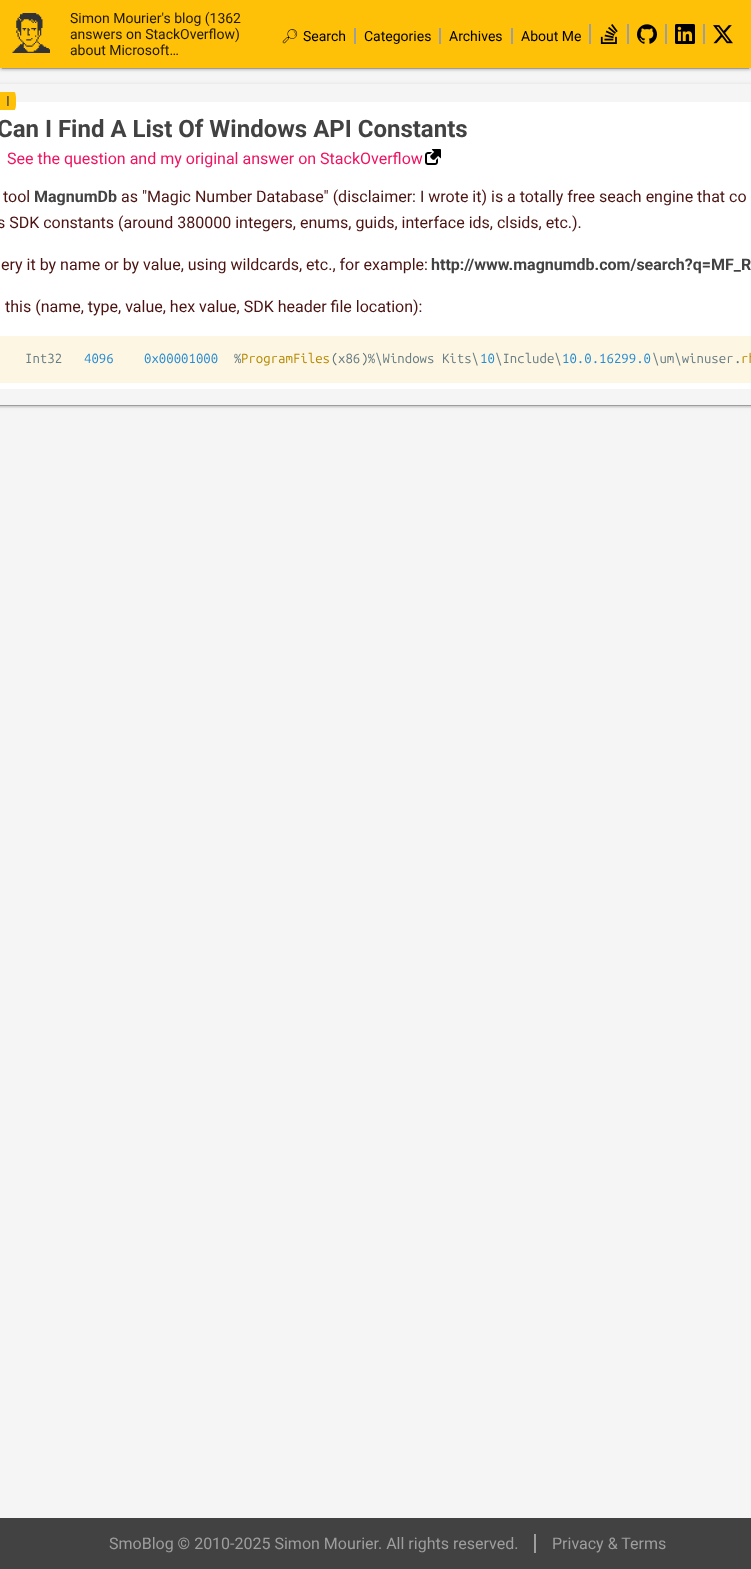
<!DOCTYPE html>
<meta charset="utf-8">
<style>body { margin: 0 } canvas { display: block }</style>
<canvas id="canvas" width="751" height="1569"></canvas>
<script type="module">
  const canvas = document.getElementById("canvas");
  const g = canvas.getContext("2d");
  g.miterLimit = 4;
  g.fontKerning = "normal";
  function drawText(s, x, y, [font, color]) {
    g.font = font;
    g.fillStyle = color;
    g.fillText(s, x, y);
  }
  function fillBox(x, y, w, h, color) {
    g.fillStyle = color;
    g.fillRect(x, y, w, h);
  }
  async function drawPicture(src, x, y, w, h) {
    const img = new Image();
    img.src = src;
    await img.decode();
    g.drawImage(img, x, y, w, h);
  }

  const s1 = ["14px Roboto", "#211901"];
  const s2 = ["14px Noto Emoji", "#000000"];
  const s3 = ["14px Roboto", "#000000"];
  const s4 = ["14px Roboto", "#424242"];
  const s5 = ["bold 24px Roboto", "#424242"];
  const s6 = ["16px Roboto", "#EF1361"];
  const s7 = ["16px Roboto", "#4B1311"];
  const s8 = ["bold 16px Roboto", "#424242"];
  const s9 = ["13.25px Ubuntu Mono", "#B58900"];
  const s10 = ["13.25px Ubuntu Mono", "#586E75"];
  const s11 = ["13.25px Ubuntu Mono", "#657B83"];
  const s12 = ["13.25px Ubuntu Mono", "#268BD2"];
  const s13 = ["16px Roboto", "#9E9E9E"];

  fillBox(0, 0, 751, 1569, "#424242");
  fillBox(0, 68, 751, 1450, "#F5F5F5");
  g.fillStyle = "rgba(0, 0, 0, 0.12)";
  g.filter = "blur(2.5px)";
  g.beginPath();
  g.rect(0, 1, 751, 68);
  g.fill();
  g.filter = "none";
  g.fillStyle = "rgba(0, 0, 0, 0.2)";
  g.filter = "blur(0.5px)";
  g.beginPath();
  g.rect(2, 5, 747, 64);
  g.fill();
  g.filter = "none";
  g.fillStyle = "rgba(0, 0, 0, 0.14)";
  g.filter = "blur(1px)";
  g.beginPath();
  g.rect(0, 2, 751, 68);
  g.fill();
  g.filter = "none";
  fillBox(0, 0, 751, 68, "#FFC107");
  await drawPicture("pic1.png", 12, 13, 38, 40);
  drawText("Simon Mourier's blog (1362", 70, 23, s1);
  drawText("answers on StackOverflow)", 70, 39, s1);
  drawText("about Microsoft…", 70, 55, s1);
  drawText("🔎︎", 281, 41, s2);
  drawText("Search", 303, 41, s3);
  fillBox(354, 28, 2, 16, "#9E9E9E");
  drawText("Categories", 364, 41, s3);
  fillBox(439, 28, 2, 16, "#9E9E9E");
  drawText("Archives", 449, 41, s3);
  fillBox(511, 28, 2, 16, "#9E9E9E");
  drawText("About Me", 521, 41, s3);
  fillBox(589, 24, 2, 20, "#9E9E9E");
  await drawPicture("pic2.png", 600, 24, 18, 20);
  fillBox(627, 24, 2, 20, "#9E9E9E");
  await drawPicture("pic3.png", 637, 24, 20, 20);
  fillBox(665, 24, 2, 20, "#9E9E9E");
  await drawPicture("pic4.png", 675, 24, 20, 20);
  fillBox(703, 24, 2, 20, "#9E9E9E");
  await drawPicture("pic5.png", 713, 25, 20, 19);
  g.save();
  g.beginPath();
  g.moveTo(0, 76);
  g.lineTo(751, 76);
  g.lineTo(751, 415);
  g.lineTo(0, 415);
  g.closePath();
  g.moveTo(-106, 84);
  g.lineTo(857, 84);
  g.lineTo(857, 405);
  g.lineTo(-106, 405);
  g.closePath();
  g.clip("evenodd");
  g.fillStyle = "rgba(0, 0, 0, 0.12)";
  g.filter = "blur(2.5px)";
  g.beginPath();
  g.rect(-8, 85, 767, 321);
  g.fill();
  g.filter = "none";
  g.restore();
  g.save();
  g.beginPath();
  g.rect(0, 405, 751, 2);
  g.clip();
  g.fillStyle = "rgba(0, 0, 0, 0.2)";
  g.filter = "blur(0.5px)";
  g.beginPath();
  g.rect(-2, 89, 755, 317);
  g.fill();
  g.filter = "none";
  g.restore();
  g.save();
  g.beginPath();
  g.rect(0, 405, 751, 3);
  g.clip();
  g.fillStyle = "rgba(0, 0, 0, 0.14)";
  g.filter = "blur(1px)";
  g.beginPath();
  g.rect(-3, 86, 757, 321);
  g.fill();
  g.filter = "none";
  g.restore();
  fillBox(0, 102, 751, 287, "#FFFFFF");
  g.save();
  g.beginPath();
  g.rect(0, 92, 24, 18);
  g.clip();
  g.fillStyle = "#FFC107";
  g.beginPath();
  g.roundRect(0, 87, 16, 28, [0, 10, 10, 0]);
  g.fill();
  g.restore();
  drawText("I", 6, 106, s4);
  drawText("Can I Find A List Of Windows API Constants", -3, 137, s5);
  drawText("See the question and my original answer on StackOverflow", 7, 164, s6);
  await drawPicture("pic6.png", 425, 149, 16, 16);
  drawText("tool", 3, 202, s7);
  drawText("MagnumDb", 34, 202, s8);
  drawText("as \"Magic Number Database\" (disclaimer: I wrote it) is a totally free seach engine that co", 121, 202, s7);
  drawText("s SDK constants (around 380000 integers, enums, guids, interface ids, clsids, etc.).", -3, 228, s7);
  drawText("ery it by name or by value, using wildcards, etc., for example:", 1, 270, s7);
  drawText("http://www.magnumdb.com/search?q=MF_R", 431, 270, s8);
  drawText("this (name, type, value, hex value, SDK header file location):", 5, 312, s7);
  fillBox(0, 336, 751, 47, "#FDF6E3");
  drawText("ProgramFiles", 241, 363, s9);
  drawText("(", 331, 363, s10);
  drawText("x86 %\\Windows Kits\\", 338, 363, s11);
  drawText("Int32", 25, 363, s11);
  drawText("4096", 84, 363, s12);
  drawText("0x00001000", 144, 363, s12);
  drawText("%", 234, 363, s11);
  drawText(")", 361, 363, s10);
  drawText("10", 480, 363, s12);
  drawText("\\Include\\", 495, 363, s11);
  drawText("10.0.16299.0", 562, 363, s12);
  drawText("\\um\\winuser", 652, 363, s11);
  drawText(".", 734, 363, s10);
  drawText("rh", 741, 363, s9);
  drawText("SmoBlog © 2010-2025 Simon Mourier. All rights reserved.", 109, 1549, s13);
  fillBox(534, 1534, 2, 19, "#9E9E9E");
  drawText("Privacy & Terms", 552, 1549, s13);
</script>
